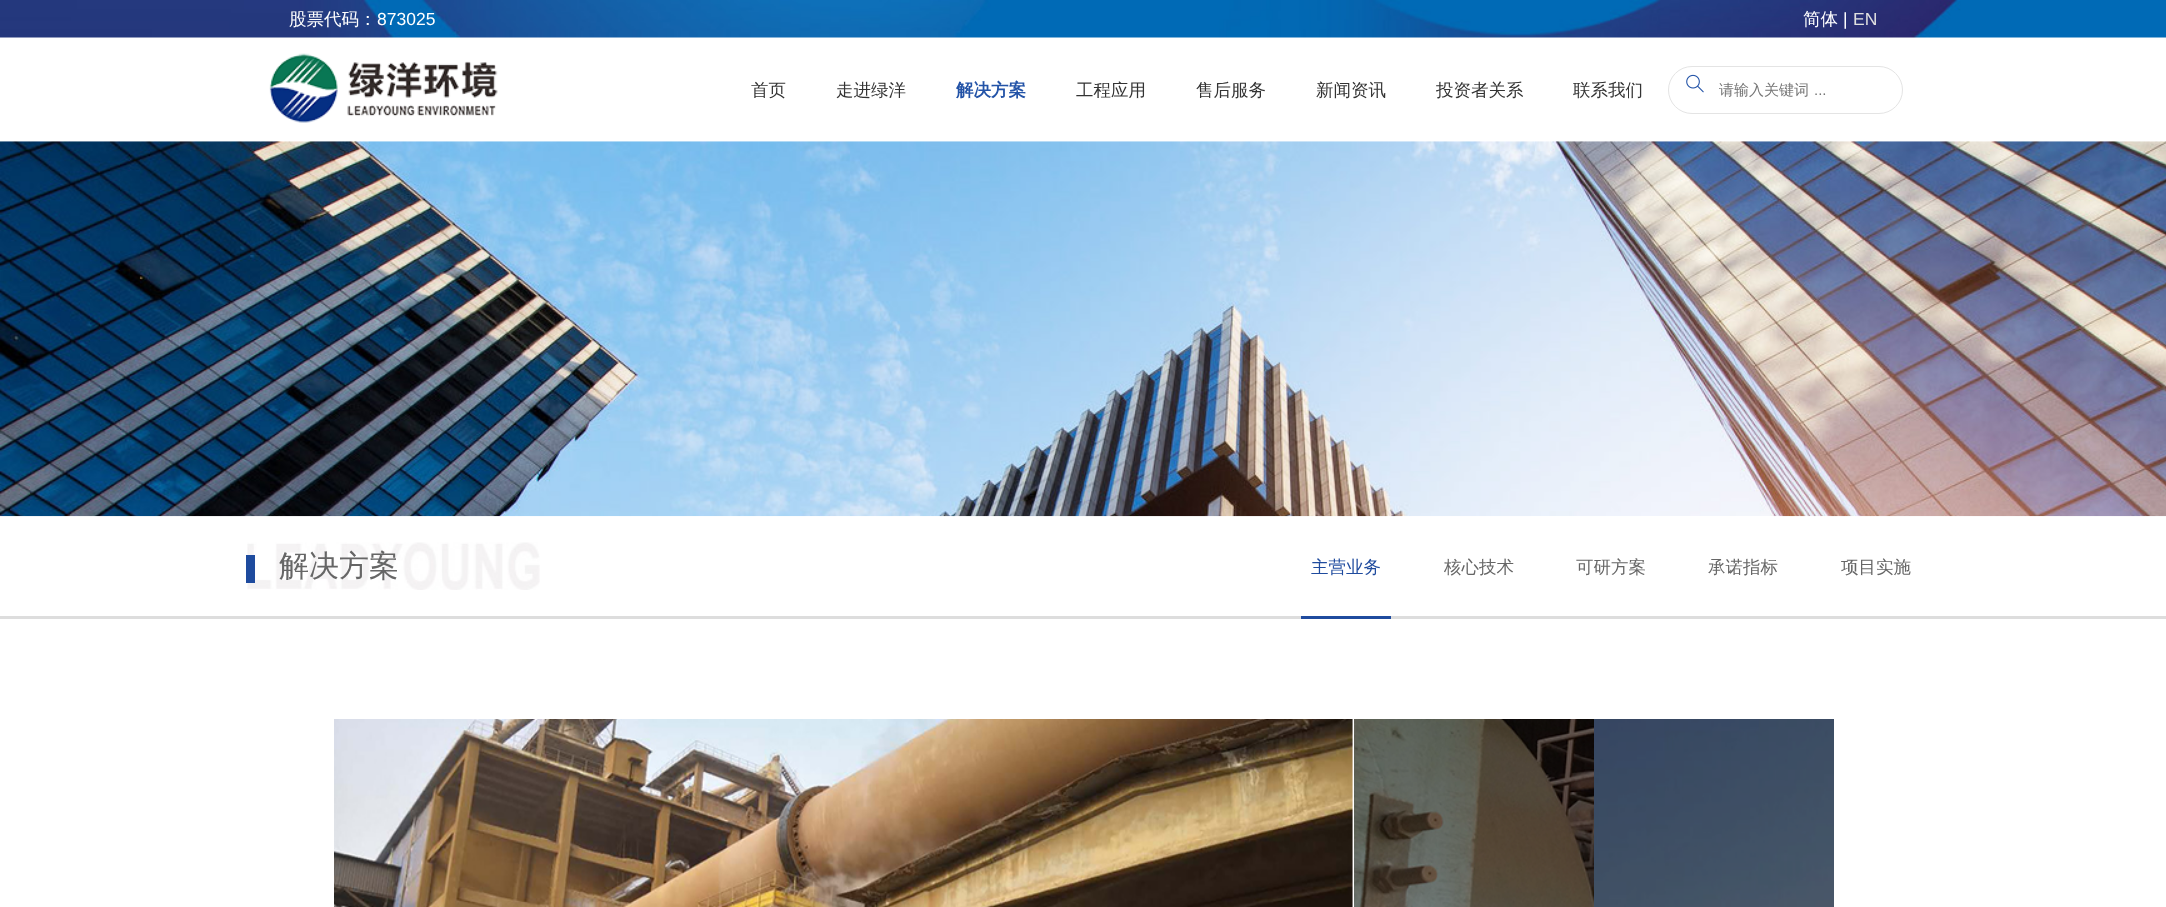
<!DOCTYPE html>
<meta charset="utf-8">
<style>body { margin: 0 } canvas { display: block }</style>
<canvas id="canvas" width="2166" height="907"></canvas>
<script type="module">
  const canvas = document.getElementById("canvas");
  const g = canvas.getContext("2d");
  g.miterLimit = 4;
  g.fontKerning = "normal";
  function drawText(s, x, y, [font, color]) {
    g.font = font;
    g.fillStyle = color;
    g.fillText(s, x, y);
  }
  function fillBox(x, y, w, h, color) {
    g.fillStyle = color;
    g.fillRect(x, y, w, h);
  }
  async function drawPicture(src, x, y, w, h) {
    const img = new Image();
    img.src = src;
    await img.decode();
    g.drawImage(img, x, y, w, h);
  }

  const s1 = ["500 17.5px WenQuanYi Zen Hei", "#FFFFFF"];
  const s2 = ["17.5px Liberation Sans", "#FFFFFF"];
  const s3 = ["17.5px Liberation Sans", "#E0E0E0"];
  const s4 = ["500 17.5px WenQuanYi Zen Hei", "#333333"];
  const s5 = ["bold 17.5px WenQuanYi Zen Hei", "#2353A7"];
  const s6 = ["500 15px WenQuanYi Zen Hei", "#757575"];
  const s7 = ["15px Liberation Sans", "#757575"];
  const s8 = ["500 30px WenQuanYi Zen Hei", "#666666"];
  const s9 = ["500 17.5px WenQuanYi Zen Hei", "#1F4B9E"];
  const s10 = ["500 17.5px WenQuanYi Zen Hei", "#666666"];

  fillBox(0, 0, 2166, 907, "#FFFFFF");
  await drawPicture("pic1.png", 0, 0, 2166, 38);
  drawText("股票代码：", 289, 25, s1);
  drawText("873025", 377, 25, s2);
  drawText("简体", 1803, 25, s1);
  drawText("|", 1843, 25, s2);
  drawText("EN", 1853, 25, s3);
  await drawPicture("pic2.png", 269, 53, 229, 70);
  drawText("首页", 751, 96, s4);
  drawText("走进绿洋", 836, 96, s4);
  drawText("解决方案", 956, 96, s5);
  drawText("工程应用", 1076, 96, s4);
  drawText("售后服务", 1196, 96, s4);
  drawText("新闻资讯", 1316, 96, s4);
  drawText("投资者关系", 1436, 96, s4);
  drawText("联系我们", 1573, 96, s4);
  g.beginPath();
  g.roundRect(1668.5, 66.5, 234, 47, 23.5);
  g.strokeStyle = "#E4E4E4";
  g.stroke();
  await drawPicture("pic3.png", 1686, 74, 18, 19);
  drawText("请输入关键词", 1719, 95, s6);
  drawText("...", 1814, 95, s7);
  await drawPicture("pic4.png", 0, 141, 2166, 376);
  fillBox(0, 616, 2166, 3, "#DDDDDD");
  await drawPicture("pic5.png", 247, 542, 293, 48);
  fillBox(246, 555, 9, 28, "#1E4B9E");
  drawText("解决方案", 279, 576, s8);
  fillBox(1301, 616, 90, 3, "#1F4B9E");
  drawText("主营业务", 1311, 573, s9);
  drawText("核心技术", 1444, 573, s10);
  drawText("可研方案", 1576, 573, s10);
  drawText("承诺指标", 1708, 573, s10);
  drawText("项目实施", 1841, 573, s10);
  await drawPicture("pic6.png", 334, 719, 1019, 188);
  await drawPicture("pic7.png", 1354, 719, 240, 188);
  await drawPicture("pic8.png", 1594, 719, 240, 188);
</script>
